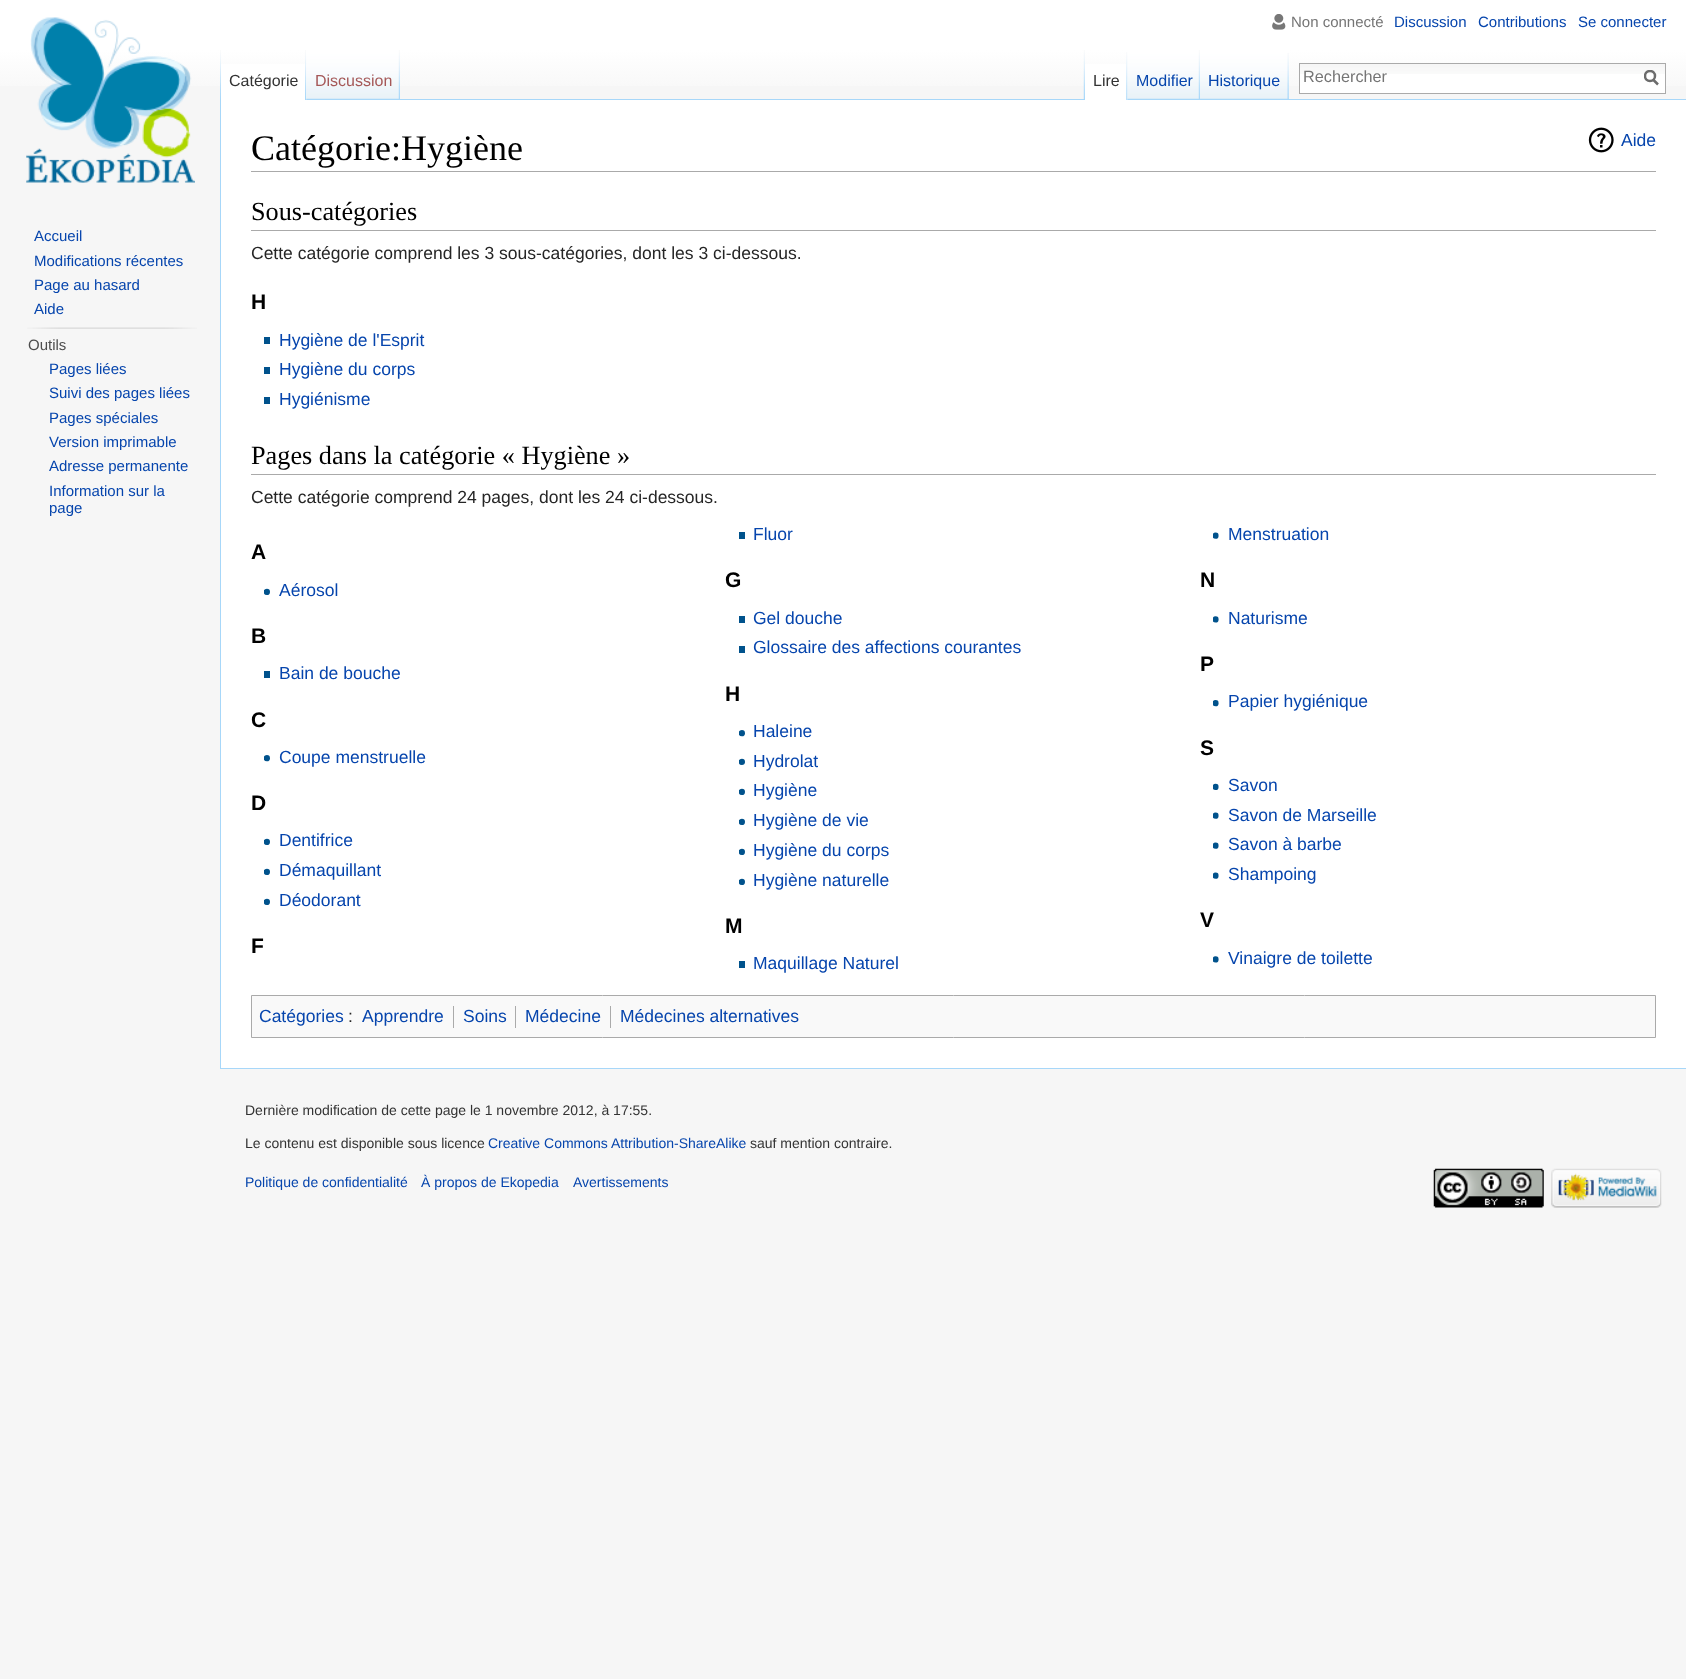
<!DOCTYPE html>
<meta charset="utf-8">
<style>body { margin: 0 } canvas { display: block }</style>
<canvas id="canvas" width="1686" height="1679"></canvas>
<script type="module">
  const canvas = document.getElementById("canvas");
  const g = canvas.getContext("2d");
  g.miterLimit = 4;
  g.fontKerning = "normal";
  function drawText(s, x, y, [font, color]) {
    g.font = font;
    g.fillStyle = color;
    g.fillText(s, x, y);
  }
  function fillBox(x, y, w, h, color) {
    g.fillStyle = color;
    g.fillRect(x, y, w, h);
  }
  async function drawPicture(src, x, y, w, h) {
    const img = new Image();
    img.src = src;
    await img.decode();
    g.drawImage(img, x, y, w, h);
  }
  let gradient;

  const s1 = ["15px Liberation Sans", "#757575"];
  const s2 = ["15px Liberation Sans", "#0645AD"];
  const s3 = ["16px Liberation Sans", "#333333"];
  const s4 = ["16px Liberation Sans", "#A55858"];
  const s5 = ["16px Liberation Sans", "#0645AD"];
  const s6 = ["16.25px Liberation Sans", "#757575"];
  const s7 = ["15px Liberation Sans", "#4D4D4D"];
  const s8 = ["36px Liberation Serif", "#000000"];
  const s9 = ["17.5px Liberation Sans", "#0645AD"];
  const s10 = ["26.25px Liberation Serif", "#000000"];
  const s11 = ["17.5px Liberation Sans", "#252525"];
  const s12 = ["bold 21px Liberation Sans", "#000000"];
  const s13 = ["14px Liberation Sans", "#333333"];
  const s14 = ["14px Liberation Sans", "#0645AD"];

  fillBox(0, 0, 1686, 1679, "#F6F6F6");
  gradient = g.createLinearGradient(843, 0, 843, 100);
  gradient.addColorStop(0.5, "#FFFFFF");
  gradient.addColorStop(1, "#F6F6F6");
  g.fillStyle = gradient;
  g.fillRect(0, 0, 1686, 86);
  await drawPicture("pic1.png", 1272, 14, 14, 16);
  drawText("Non connecté", 1291, 27, s1);
  drawText("Discussion", 1394, 27, s2);
  drawText("Contributions", 1478, 27, s2);
  drawText("Se connecter", 1578, 27, s2);
  await drawPicture("pic2.png", 220, 50, 1, 49);
  fillBox(221, 64, 86, 36, "#FFFFFF");
  await drawPicture("pic3.png", 305, 50, 2, 50);
  drawText("Catégorie", 229, 86, s3);
  await drawPicture("pic4.png", 306, 50, 94, 50);
  await drawPicture("pic5.png", 398, 50, 2, 49);
  drawText("Discussion", 315, 86, s4);
  await drawPicture("pic6.png", 1083, 50, 2, 49);
  await drawPicture("pic7.png", 1288, 52, 1, 47);
  fillBox(400, 99, 1286, 1, "#A7D7F9");
  fillBox(1085, 64, 43, 36, "#FFFFFF");
  await drawPicture("pic8.png", 1126, 52, 2, 48);
  drawText("Lire", 1093, 86, s3);
  await drawPicture("pic9.png", 1127, 50, 73, 50);
  await drawPicture("pic5.png", 1198, 50, 2, 49);
  drawText("Modifier", 1136, 86, s5);
  await drawPicture("pic10.png", 1200, 50, 89, 50);
  await drawPicture("pic11.png", 1287, 53, 2, 47);
  drawText("Historique", 1208, 86, s5);
  fillBox(1300, 74, 365, 19, "#FFFFFF");
  await drawPicture("pic12.png", 1300, 64, 365, 10);
  g.strokeStyle = "#AAAAAA";
  g.strokeRect(1299.5, 63.5, 366, 30);
  drawText("Rechercher", 1303, 82, s6);
  g.beginPath();
  g.moveTo(1658, 84.5);
  g.lineTo(1653, 79.5);
  g.strokeStyle = "#6C6C6C";
  g.lineWidth = 2.5;
  g.stroke();
  g.save();
  g.beginPath();
  g.rect(1644, 70, 15, 16);
  g.clip();
  g.beginPath();
  g.arc(1650, 76, 5, 0, Math.PI * 2);
  g.stroke();
  g.restore();
  await drawPicture("pic13.png", 26, 17, 169, 166);
  drawText("Accueil", 34, 241, s2);
  drawText("Modifications récentes", 34, 266, s2);
  drawText("Page au hasard", 34, 290, s2);
  drawText("Aide", 34, 314, s2);
  await drawPicture("pic14.png", 27, 327, 170, 2);
  drawText("Outils", 28, 350, s7);
  drawText("Pages liées", 49, 374, s2);
  drawText("Suivi des pages liées", 49, 398, s2);
  drawText("Pages spéciales", 49, 423, s2);
  drawText("Version imprimable", 49, 447, s2);
  drawText("Adresse permanente", 49, 471, s2);
  drawText("Information sur la", 49, 496, s2);
  drawText("page", 49, 513, s2);
  fillBox(221, 100, 1465, 968, "#FFFFFF");
  fillBox(220, 1068, 1466, 1, "#A7D7F9");
  fillBox(220, 99, 1, 970, "#A7D7F9");
  fillBox(251, 171, 1405, 1, "#AAAAAA");
  drawText("Catégorie:Hygiène", 251, 160, s8);
  await drawPicture("pic15.png", 1588, 127, 26, 26);
  drawText("Aide", 1621, 146, s9);
  fillBox(251, 230, 1405, 1, "#AAAAAA");
  drawText("Sous-catégories", 251, 220, s10);
  drawText("Cette catégorie comprend les 3 sous-catégories, dont les 3 ci-dessous.", 251, 259, s11);
  drawText("H", 251, 309, s12);
  fillBox(264, 337, 6, 7, "#00528C");
  drawText("Hygiène de l'Esprit", 279, 346, s9);
  fillBox(264, 367, 6, 7, "#00528C");
  drawText("Hygiène du corps", 279, 375, s9);
  fillBox(264, 397, 6, 7, "#00528C");
  drawText("Hygiénisme", 279, 405, s9);
  fillBox(251, 474, 1405, 1, "#AAAAAA");
  drawText("Pages dans la catégorie « Hygiène »", 251, 464, s10);
  drawText("Cette catégorie comprend 24 pages, dont les 24 ci-dessous.", 251, 503, s11);
  fillBox(739, 532, 6, 7, "#00528C");
  drawText("Fluor", 753, 540, s9);
  drawText("F", 251, 953, s12);
  drawText("M", 725, 933, s12);
  await drawPicture("pic16.png", 1213, 532, 6, 7);
  drawText("Menstruation", 1228, 540, s9);
  fillBox(739, 961, 6, 7, "#00528C");
  drawText("Maquillage Naturel", 753, 969, s9);
  drawText("A", 251, 559, s12);
  await drawPicture("pic17.png", 264, 588, 6, 7);
  drawText("Aérosol", 279, 596, s9);
  drawText("G", 725, 587, s12);
  fillBox(739, 616, 6, 7, "#00528C");
  drawText("Gel douche", 753, 624, s9);
  fillBox(739, 646, 6, 7, "#00528C");
  drawText("Glossaire des affections courantes", 753, 653, s9);
  drawText("N", 1200, 587, s12);
  await drawPicture("pic18.png", 1213, 616, 6, 7);
  drawText("Naturisme", 1228, 624, s9);
  drawText("B", 251, 643, s12);
  fillBox(264, 671, 6, 7, "#00528C");
  drawText("Bain de bouche", 279, 679, s9);
  drawText("H", 725, 701, s12);
  await drawPicture("pic19.png", 739, 730, 6, 7);
  drawText("Haleine", 753, 737, s9);
  await drawPicture("pic20.png", 739, 758, 6, 7);
  drawText("Hydrolat", 753, 767, s9);
  await drawPicture("pic17.png", 739, 788, 6, 7);
  drawText("Hygiène", 753, 796, s9);
  await drawPicture("pic17.png", 739, 818, 6, 7);
  drawText("Hygiène de vie", 753, 826, s9);
  await drawPicture("pic17.png", 739, 848, 6, 7);
  drawText("Hygiène du corps", 753, 856, s9);
  await drawPicture("pic17.png", 739, 878, 6, 7);
  drawText("Hygiène naturelle", 753, 886, s9);
  drawText("P", 1200, 671, s12);
  await drawPicture("pic21.png", 1213, 700, 6, 7);
  drawText("Papier hygiénique", 1228, 707, s9);
  drawText("C", 251, 727, s12);
  await drawPicture("pic19.png", 264, 755, 6, 7);
  drawText("Coupe menstruelle", 279, 763, s9);
  drawText("S", 1200, 755, s12);
  await drawPicture("pic22.png", 1213, 783, 6, 7);
  drawText("Savon", 1228, 791, s9);
  await drawPicture("pic16.png", 1213, 812, 6, 7);
  drawText("Savon de Marseille", 1228, 821, s9);
  await drawPicture("pic16.png", 1213, 842, 6, 7);
  drawText("Savon à barbe", 1228, 850, s9);
  await drawPicture("pic16.png", 1213, 872, 6, 7);
  drawText("Shampoing", 1228, 880, s9);
  drawText("D", 251, 810, s12);
  await drawPicture("pic17.png", 264, 838, 6, 7);
  drawText("Dentifrice", 279, 846, s9);
  await drawPicture("pic17.png", 264, 868, 6, 7);
  drawText("Démaquillant", 279, 876, s9);
  await drawPicture("pic17.png", 264, 898, 6, 7);
  drawText("Déodorant", 279, 906, s9);
  drawText("V", 1200, 927, s12);
  await drawPicture("pic18.png", 1213, 956, 6, 7);
  drawText("Vinaigre de toilette", 1228, 964, s9);
  g.fillStyle = "#F9F9F9";
  g.beginPath();
  g.rect(251.5, 995.5, 1404, 42);
  g.fill();
  g.strokeStyle = "#AAAAAA";
  g.lineWidth = 1;
  g.stroke();
  drawText("Catégories", 259, 1022, s9);
  drawText(":", 348, 1022, s11);
  drawText("Apprendre", 362, 1022, s9);
  fillBox(453, 1006, 1, 22, "#AAAAAA");
  drawText("Soins", 463, 1022, s9);
  fillBox(515, 1006, 1, 22, "#AAAAAA");
  drawText("Médecine", 525, 1022, s9);
  fillBox(610, 1006, 1, 22, "#AAAAAA");
  drawText("Médecines alternatives", 620, 1022, s9);
  drawText("Dernière modification de cette page le 1 novembre 2012, à 17:55.", 245, 1115, s13);
  drawText("Le contenu est disponible sous licence", 245, 1148, s13);
  drawText("Creative Commons Attribution-ShareAlike", 488, 1148, s14);
  drawText("sauf mention contraire.", 750, 1148, s13);
  drawText("Politique de confidentialité", 245, 1187, s14);
  drawText("À propos de Ekopedia", 421, 1187, s14);
  drawText("Avertissements", 573, 1187, s14);
  await drawPicture("pic23.png", 1433, 1168, 111, 40);
  await drawPicture("pic24.png", 1551, 1168, 111, 40);
</script>
